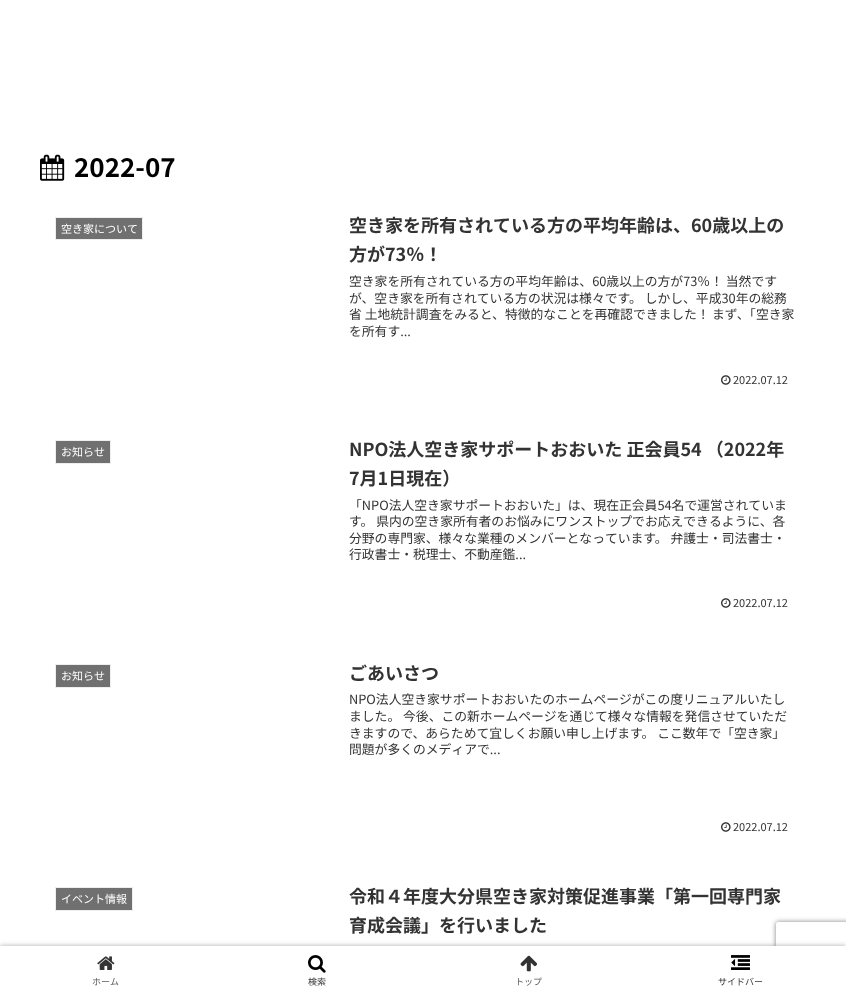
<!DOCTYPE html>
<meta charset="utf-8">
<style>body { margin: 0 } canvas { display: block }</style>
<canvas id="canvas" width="846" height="996"></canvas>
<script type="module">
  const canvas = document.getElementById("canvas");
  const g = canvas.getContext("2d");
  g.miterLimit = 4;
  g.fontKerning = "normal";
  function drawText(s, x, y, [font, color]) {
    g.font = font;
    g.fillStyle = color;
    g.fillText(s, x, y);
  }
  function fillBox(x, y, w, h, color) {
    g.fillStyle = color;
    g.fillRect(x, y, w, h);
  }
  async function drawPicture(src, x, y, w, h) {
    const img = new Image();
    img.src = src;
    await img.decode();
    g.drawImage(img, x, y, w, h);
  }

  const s1 = ["bold 26px Noto Sans JP", "#000000"];
  const s2 = ["11px Noto Sans JP", "#FFFFFF"];
  const s3 = ["bold 18px Noto Sans JP", "#333333"];
  const s4 = ["12.8px Noto Sans JP", "#333333"];
  const s5 = ["11px Noto Sans JP", "#333333"];
  const s6 = ["9px Noto Sans JP", "#5C5C5C"];
  const s7 = ["9px Noto Sans JP", "#333333"];

  fillBox(0, 0, 846, 996, "#FFFFFF");
  await drawPicture("pic1.png", 40, 154, 25, 27);
  drawText("2022-07", 74, 177, s1);
  g.fillStyle = "#707070";
  g.beginPath();
  g.rect(55.5, 217.5, 87, 22);
  g.fill();
  g.strokeStyle = "#EEEEEE";
  g.stroke();
  drawText("空き家について", 61, 233, s2);
  drawText("空き家を所有されている方の平均年齢は、60歳以上の", 349, 232, s3);
  drawText("方が73％！", 349, 261, s3);
  drawText("空き家を所有されている方の平均年齢は、60歳以上の方が73％！ 当然です", 349, 286, s4);
  drawText("が、空き家を所有されている方の状況は様々です。 しかし、平成30年の総務", 349, 303, s4);
  drawText("省 土地統計調査をみると、特徴的なことを再確認できました！", 349, 319, s4);
  g.save();
  g.beginPath();
  g.rect(349, 273, 446, 66);
  g.clip();
  drawText("まず、「空き家", 712, 319, s4);
  g.restore();
  drawText("を所有す...", 349, 336, s4);
  await drawPicture("pic2.png", 721, 375, 10, 10);
  drawText("2022.07.12", 733, 384, s5);
  g.fillStyle = "#707070";
  g.beginPath();
  g.rect(55.5, 440.5, 55, 23);
  g.fill();
  g.stroke();
  drawText("お知らせ", 61, 456, s2);
  drawText("NPO法人空き家サポートおおいた 正会員54 （2022年", 349, 456, s3);
  drawText("7月1日現在）", 349, 485, s3);
  drawText("「NPO法人空き家サポートおおいた」は、現在正会員54名で運営されていま", 349, 510, s4);
  drawText("す。 県内の空き家所有者のお悩みにワンストップでお応えできるように、各", 349, 526, s4);
  drawText("分野の専門家、様々な業種のメンバーとなっています。 弁護士・司法書士・", 349, 543, s4);
  drawText("行政書士・税理士、不動産鑑...", 349, 559, s4);
  await drawPicture("pic2.png", 721, 598, 10, 10);
  drawText("2022.07.12", 733, 607, s5);
  g.fillStyle = "#707070";
  g.beginPath();
  g.rect(55.5, 664.5, 55, 23);
  g.fill();
  g.stroke();
  drawText("お知らせ", 61, 680, s2);
  drawText("ごあいさつ", 349, 680, s3);
  drawText("NPO法人空き家サポートおおいたのホームページがこの度リニュアルいたし", 349, 704, s4);
  drawText("ました。 今後、この新ホームページを通じて様々な情報を発信させていただ", 349, 721, s4);
  drawText("きますので、あらためて宜しくお願い申し上げます。 ここ数年で「空き家」", 349, 738, s4);
  drawText("問題が多くのメディアで...", 349, 754, s4);
  await drawPicture("pic2.png", 721, 822, 10, 10);
  drawText("2022.07.12", 733, 831, s5);
  g.fillStyle = "#707070";
  g.beginPath();
  g.rect(55.5, 887.5, 77, 23);
  g.fill();
  g.stroke();
  drawText("イベント情報", 61, 903, s2);
  drawText("令和４年度大分県空き家対策促進事業「第一回専門家", 349, 903, s3);
  drawText("育成会議」を行いました", 349, 932, s3);
  g.fillStyle = "#A9A9A9";
  g.filter = "blur(2.5px)";
  g.beginPath();
  g.rect(0, 946, 846, 50);
  g.fill();
  g.filter = "none";
  g.save();
  g.beginPath();
  g.moveTo(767, 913);
  g.lineTo(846, 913);
  g.lineTo(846, 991);
  g.lineTo(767, 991);
  g.closePath();
  g.moveTo(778, 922);
  g.lineTo(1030, 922);
  g.bezierCurveTo(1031, 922, 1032, 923, 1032, 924);
  g.lineTo(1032, 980);
  g.bezierCurveTo(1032, 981, 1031, 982, 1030, 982);
  g.lineTo(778, 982);
  g.bezierCurveTo(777, 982, 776, 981, 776, 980);
  g.lineTo(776, 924);
  g.bezierCurveTo(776, 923, 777, 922, 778, 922);
  g.closePath();
  g.clip("evenodd");
  g.fillStyle = "#808080";
  g.filter = "blur(2.5px)";
  g.beginPath();
  g.roundRect(776, 922, 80, 60, 2);
  g.fill();
  g.filter = "none";
  g.restore();
  fillBox(0, 946, 846, 50, "#FFFFFF");
  await drawPicture("pic3.png", 97, 956, 18, 14);
  drawText("ホーム", 92, 985, s6);
  await drawPicture("pic4.png", 308, 955, 18, 18);
  drawText("検索", 308, 985, s7);
  await drawPicture("pic5.png", 520, 955, 17, 17);
  drawText("トップ", 515, 985, s6);
  await drawPicture("pic6.png", 731, 955, 19, 15);
  drawText("サイドバー", 718, 985, s7);
</script>
